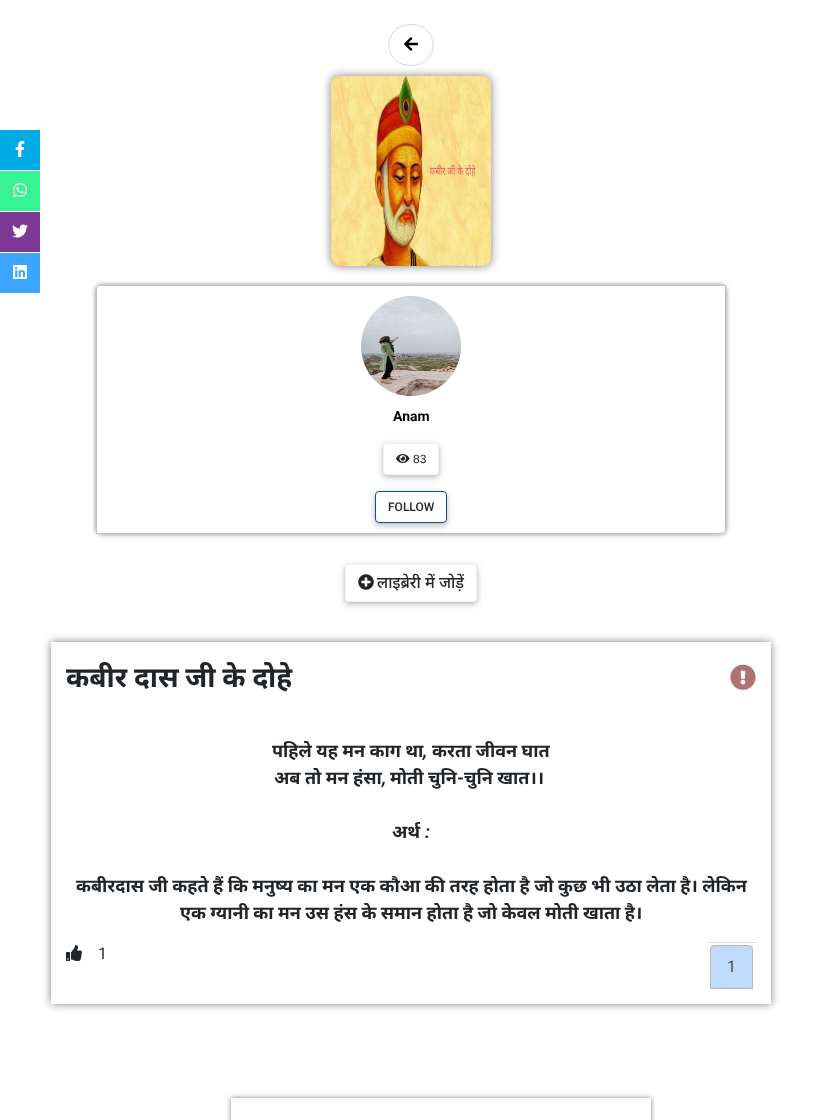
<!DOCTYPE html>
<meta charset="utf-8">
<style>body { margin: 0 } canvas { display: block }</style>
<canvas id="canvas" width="822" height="1120"></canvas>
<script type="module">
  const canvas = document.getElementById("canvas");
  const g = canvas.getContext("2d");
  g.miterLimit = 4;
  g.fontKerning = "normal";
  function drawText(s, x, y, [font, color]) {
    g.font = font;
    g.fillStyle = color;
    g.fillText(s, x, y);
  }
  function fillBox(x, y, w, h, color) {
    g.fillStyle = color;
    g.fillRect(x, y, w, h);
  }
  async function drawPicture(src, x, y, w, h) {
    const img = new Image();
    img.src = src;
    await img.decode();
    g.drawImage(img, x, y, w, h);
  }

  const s1 = ["bold 14px Roboto", "#000000"];
  const s2 = ["12px Liberation Sans", "#212529"];
  const s3 = ["500 12px Roboto", "#212529"];
  const s4 = ["500 16px Noto Sans", "#212529"];
  const s5 = ["bold 28px Noto Sans", "#212529"];
  const s6 = ["italic bold 18px Noto Sans", "#212529"];
  const s7 = ["italic bold 18px Roboto", "#212529"];
  const s8 = ["16px Roboto", "#212529"];
  const s9 = ["16px Roboto", "#464A4C"];

  fillBox(0, 0, 822, 1120, "#FFFFFF");
  fillBox(0, 130, 40, 40, "#00AAE5");
  await drawPicture("pic1.png", 15, 141, 10, 16);
  fillBox(0, 171, 40, 40, "#37F394");
  await drawPicture("pic2.png", 13, 183, 14, 14);
  fillBox(0, 212, 40, 40, "#7D3895");
  await drawPicture("pic3.png", 12, 224, 16, 14);
  fillBox(0, 253, 40, 40, "#3CA5FF");
  await drawPicture("pic4.png", 13, 265, 14, 14);
  g.fillStyle = "rgba(0, 0, 0, 0.5)";
  g.filter = "blur(5px)";
  g.beginPath();
  g.roundRect(331, 76, 160, 190, 8);
  g.fill();
  g.filter = "none";
  g.beginPath();
  g.moveTo(411, 24.5);
  g.bezierCurveTo(440.5, 24.5, 440.5, 65.5, 411, 65.5);
  g.bezierCurveTo(381.5, 65.5, 381.5, 24.5, 411, 24.5);
  g.closePath();
  g.strokeStyle = "#D7D7D7";
  g.stroke();
  await drawPicture("pic5.png", 404, 37, 14, 14);
  await drawPicture("pic6.png", 331, 76, 160, 190);
  g.save();
  g.beginPath();
  g.moveTo(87, 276);
  g.lineTo(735, 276);
  g.lineTo(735, 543);
  g.lineTo(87, 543);
  g.closePath();
  g.moveTo(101, 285);
  g.lineTo(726, 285);
  g.lineTo(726, 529);
  g.bezierCurveTo(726, 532, 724, 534, 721, 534);
  g.lineTo(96, 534);
  g.lineTo(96, 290);
  g.bezierCurveTo(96, 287, 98, 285, 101, 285);
  g.closePath();
  g.clip("evenodd");
  g.filter = "blur(2.5px)";
  g.beginPath();
  g.roundRect(96, 285, 630, 249, 5);
  g.fill();
  g.filter = "none";
  g.restore();
  g.beginPath();
  g.roundRect(96.5, 285.5, 629, 248, [4.5, 0, 4.5, 0]);
  g.strokeStyle = "#C1C1C1";
  g.stroke();
  await drawPicture("pic7.png", 361, 296, 100, 100);
  drawText("Anam", 393, 421, s1);
  g.save();
  g.beginPath();
  g.moveTo(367, 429);
  g.lineTo(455, 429);
  g.lineTo(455, 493);
  g.lineTo(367, 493);
  g.closePath();
  g.moveTo(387, 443);
  g.lineTo(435, 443);
  g.bezierCurveTo(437, 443, 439, 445, 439, 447);
  g.lineTo(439, 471);
  g.bezierCurveTo(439, 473, 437, 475, 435, 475);
  g.lineTo(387, 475);
  g.bezierCurveTo(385, 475, 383, 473, 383, 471);
  g.lineTo(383, 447);
  g.bezierCurveTo(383, 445, 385, 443, 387, 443);
  g.closePath();
  g.clip("evenodd");
  g.fillStyle = "rgba(0, 0, 0, 0.1)";
  g.filter = "blur(5px)";
  g.beginPath();
  g.roundRect(383, 445, 56, 32, 4);
  g.fill();
  g.filter = "none";
  g.restore();
  g.save();
  g.beginPath();
  g.moveTo(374, 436);
  g.lineTo(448, 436);
  g.lineTo(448, 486);
  g.lineTo(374, 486);
  g.closePath();
  g.moveTo(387, 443);
  g.lineTo(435, 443);
  g.bezierCurveTo(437, 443, 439, 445, 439, 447);
  g.lineTo(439, 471);
  g.bezierCurveTo(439, 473, 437, 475, 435, 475);
  g.lineTo(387, 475);
  g.bezierCurveTo(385, 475, 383, 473, 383, 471);
  g.lineTo(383, 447);
  g.bezierCurveTo(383, 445, 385, 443, 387, 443);
  g.closePath();
  g.clip("evenodd");
  g.fillStyle = "rgba(0, 0, 0, 0.2)";
  g.filter = "blur(2.5px)";
  g.beginPath();
  g.roundRect(383, 445, 56, 32, 4);
  g.fill();
  g.filter = "none";
  g.restore();
  g.beginPath();
  g.roundRect(383.5, 443.5, 55, 31, 3.5);
  g.strokeStyle = "#F1F1F1";
  g.stroke();
  await drawPicture("pic8.png", 396, 454, 14, 9);
  drawText("83", 413, 463, s2);
  g.save();
  g.beginPath();
  g.moveTo(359, 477);
  g.lineTo(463, 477);
  g.lineTo(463, 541);
  g.lineTo(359, 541);
  g.closePath();
  g.moveTo(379, 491);
  g.lineTo(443, 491);
  g.bezierCurveTo(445, 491, 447, 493, 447, 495);
  g.lineTo(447, 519);
  g.bezierCurveTo(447, 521, 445, 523, 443, 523);
  g.lineTo(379, 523);
  g.bezierCurveTo(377, 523, 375, 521, 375, 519);
  g.lineTo(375, 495);
  g.bezierCurveTo(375, 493, 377, 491, 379, 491);
  g.closePath();
  g.clip("evenodd");
  g.fillStyle = "rgba(0, 0, 0, 0.1)";
  g.filter = "blur(5px)";
  g.beginPath();
  g.roundRect(375, 493, 72, 32, 4);
  g.fill();
  g.filter = "none";
  g.restore();
  g.save();
  g.beginPath();
  g.moveTo(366, 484);
  g.lineTo(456, 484);
  g.lineTo(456, 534);
  g.lineTo(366, 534);
  g.closePath();
  g.moveTo(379, 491);
  g.lineTo(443, 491);
  g.bezierCurveTo(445, 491, 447, 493, 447, 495);
  g.lineTo(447, 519);
  g.bezierCurveTo(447, 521, 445, 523, 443, 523);
  g.lineTo(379, 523);
  g.bezierCurveTo(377, 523, 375, 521, 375, 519);
  g.lineTo(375, 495);
  g.bezierCurveTo(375, 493, 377, 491, 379, 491);
  g.closePath();
  g.clip("evenodd");
  g.fillStyle = "rgba(0, 0, 0, 0.2)";
  g.filter = "blur(2.5px)";
  g.beginPath();
  g.roundRect(375, 493, 72, 32, 4);
  g.fill();
  g.filter = "none";
  g.restore();
  g.beginPath();
  g.roundRect(375.5, 491.5, 71, 31, 3.5);
  g.strokeStyle = "#01549B";
  g.stroke();
  drawText("FOLLOW", 388, 511, s3);
  g.save();
  g.beginPath();
  g.moveTo(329, 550);
  g.lineTo(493, 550);
  g.lineTo(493, 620);
  g.lineTo(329, 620);
  g.closePath();
  g.moveTo(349, 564);
  g.lineTo(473, 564);
  g.bezierCurveTo(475, 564, 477, 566, 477, 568);
  g.lineTo(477, 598);
  g.bezierCurveTo(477, 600, 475, 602, 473, 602);
  g.lineTo(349, 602);
  g.bezierCurveTo(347, 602, 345, 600, 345, 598);
  g.lineTo(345, 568);
  g.bezierCurveTo(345, 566, 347, 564, 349, 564);
  g.closePath();
  g.clip("evenodd");
  g.fillStyle = "rgba(0, 0, 0, 0.1)";
  g.filter = "blur(5px)";
  g.beginPath();
  g.roundRect(345, 566, 132, 38, 4);
  g.fill();
  g.filter = "none";
  g.restore();
  g.save();
  g.beginPath();
  g.moveTo(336, 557);
  g.lineTo(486, 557);
  g.lineTo(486, 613);
  g.lineTo(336, 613);
  g.closePath();
  g.moveTo(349, 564);
  g.lineTo(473, 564);
  g.bezierCurveTo(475, 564, 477, 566, 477, 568);
  g.lineTo(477, 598);
  g.bezierCurveTo(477, 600, 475, 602, 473, 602);
  g.lineTo(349, 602);
  g.bezierCurveTo(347, 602, 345, 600, 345, 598);
  g.lineTo(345, 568);
  g.bezierCurveTo(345, 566, 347, 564, 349, 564);
  g.closePath();
  g.clip("evenodd");
  g.fillStyle = "rgba(0, 0, 0, 0.2)";
  g.filter = "blur(2.5px)";
  g.beginPath();
  g.roundRect(345, 566, 132, 38, 4);
  g.fill();
  g.filter = "none";
  g.restore();
  g.beginPath();
  g.roundRect(345.5, 564.5, 131, 37, 3.5);
  g.strokeStyle = "#F1F1F1";
  g.stroke();
  await drawPicture("pic9.png", 358, 574, 16, 16);
  drawText("लाइब्रेरी में जोड़ें", 377, 588, s4);
  g.save();
  g.beginPath();
  g.moveTo(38, 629);
  g.lineTo(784, 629);
  g.lineTo(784, 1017);
  g.lineTo(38, 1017);
  g.closePath();
  g.moveTo(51, 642);
  g.lineTo(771, 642);
  g.lineTo(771, 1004);
  g.lineTo(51, 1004);
  g.closePath();
  g.clip("evenodd");
  g.fillStyle = "rgba(0, 0, 0, 0.5)";
  g.filter = "blur(4px)";
  g.beginPath();
  g.rect(51, 642, 720, 362);
  g.fill();
  g.filter = "none";
  g.restore();
  g.wordSpacing = "-0.5px";
  drawText("कबीर दास जी के दोहे", 66, 687, s5);
  await drawPicture("pic10.png", 730, 664, 26, 26);
  g.wordSpacing = "-0.25px";
  drawText("पहिले यह मन काग था", 272, 757, s6);
  g.wordSpacing = "0px";
  drawText(",", 423, 757, s7);
  g.wordSpacing = "-0.25px";
  drawText("करता जीवन घात", 432, 757, s6);
  drawText("अब तो मन हंसा", 274, 784, s6);
  drawText("मोती चुनि", 390, 784, s6);
  g.wordSpacing = "0px";
  drawText("-", 457, 784, s7);
  g.wordSpacing = "-0.25px";
  drawText("चुनि खात।।", 464, 784, s6);
  g.wordSpacing = "0px";
  drawText(",", 382, 784, s7);
  drawText("अर्थ", 392, 838, s6);
  drawText(":", 425, 838, s7);
  g.wordSpacing = "-0.25px";
  drawText("कबीरदास जी कहते हैं कि मनुष्य का मन एक कौआ की तरह होता है जो कुछ भी उठा लेता है। लेकिन", 76, 892, s6);
  drawText("एक ग्यानी का मन उस हंस के समान होता है जो केवल मोती खाता है।", 180, 919, s6);
  await drawPicture("pic11.png", 66, 945, 16, 16);
  g.wordSpacing = "0px";
  drawText("1", 98, 959, s8);
  fillBox(707, 942, 49, 1, "#DDDDDD");
  g.fillStyle = "#C0DBFB";
  g.beginPath();
  g.roundRect(710.5, 945.5, 42, 43, [3.5, 3.5, 0, 0]);
  g.fill();
  g.strokeStyle = "#B7B8BB";
  g.stroke();
  drawText("1", 727, 972, s9);
  g.save();
  g.beginPath();
  g.moveTo(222, 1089);
  g.lineTo(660, 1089);
  g.lineTo(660, 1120);
  g.lineTo(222, 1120);
  g.closePath();
  g.moveTo(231, 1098);
  g.lineTo(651, 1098);
  g.lineTo(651, 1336);
  g.lineTo(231, 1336);
  g.closePath();
  g.clip("evenodd");
  g.fillStyle = "rgba(0, 0, 0, 0.5)";
  g.filter = "blur(2.5px)";
  g.beginPath();
  g.rect(231, 1098, 420, 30);
  g.fill();
  g.filter = "none";
  g.restore();
</script>
